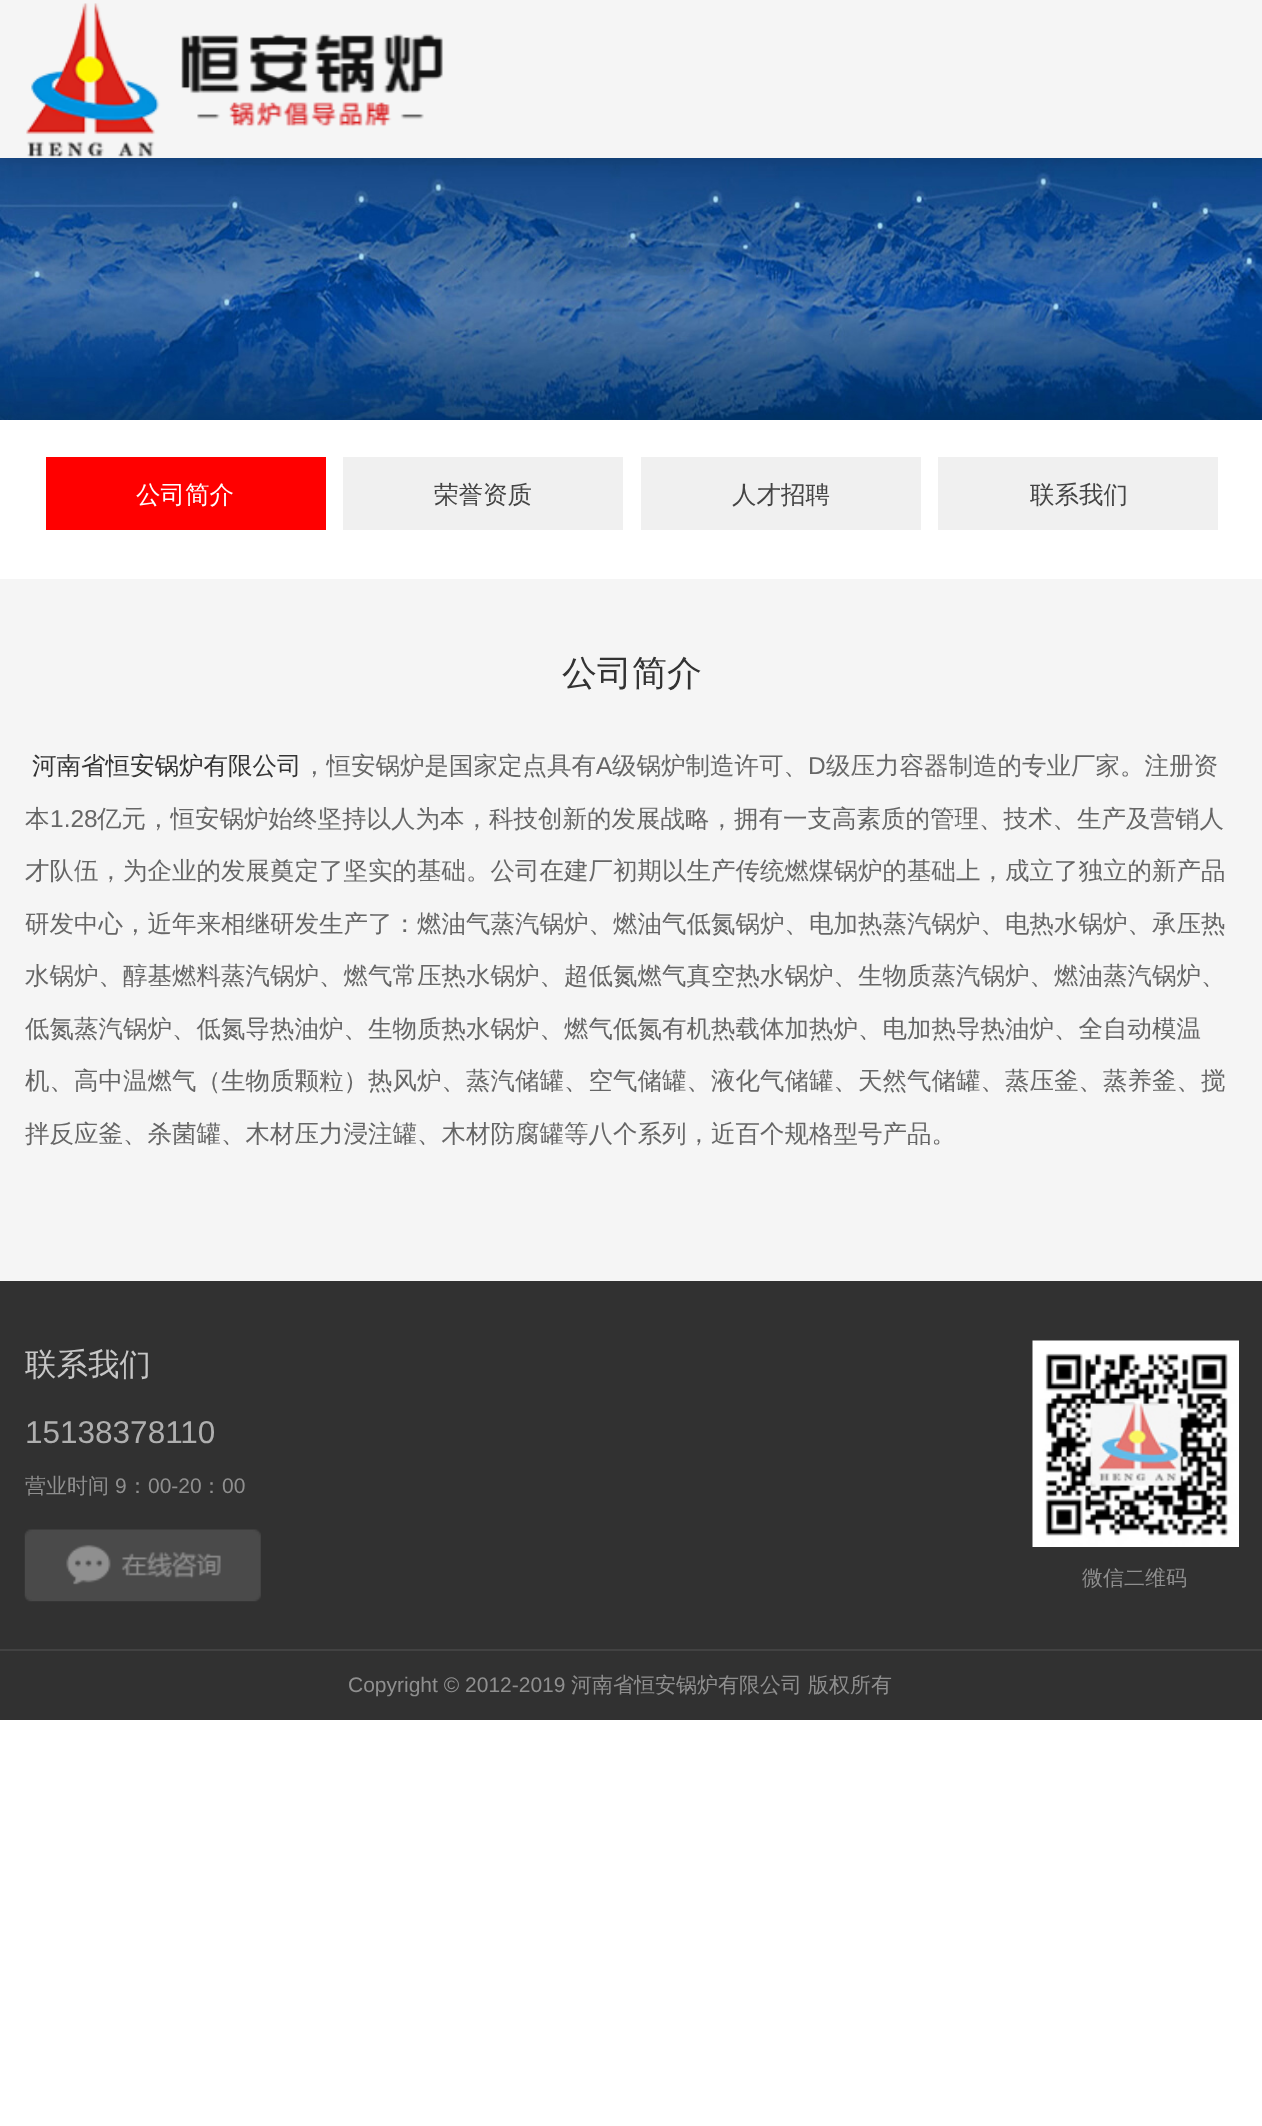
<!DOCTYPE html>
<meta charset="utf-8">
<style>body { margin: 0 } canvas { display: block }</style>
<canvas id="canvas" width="1262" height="2126"></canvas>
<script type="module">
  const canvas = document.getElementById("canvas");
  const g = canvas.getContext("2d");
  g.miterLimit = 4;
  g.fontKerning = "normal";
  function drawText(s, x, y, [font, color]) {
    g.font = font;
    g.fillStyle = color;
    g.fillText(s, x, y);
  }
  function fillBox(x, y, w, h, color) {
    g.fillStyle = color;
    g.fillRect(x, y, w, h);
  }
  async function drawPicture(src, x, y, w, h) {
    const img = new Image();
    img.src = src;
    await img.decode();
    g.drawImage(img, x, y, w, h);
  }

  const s1 = ["500 24.5px WenQuanYi Zen Hei", "#FFFFFF"];
  const s2 = ["500 24.5px WenQuanYi Zen Hei", "#444444"];
  const s3 = ["500 35px WenQuanYi Zen Hei", "#333333"];
  const s4 = ["500 24.5px WenQuanYi Zen Hei", "#333333"];
  const s5 = ["500 24.5px WenQuanYi Zen Hei", "#666666"];
  const s6 = ["24.5px Liberation Sans", "#666666"];
  const s7 = ["500 31.5px WenQuanYi Zen Hei", "#C7C7C7"];
  const s8 = ["31.5px Liberation Sans", "#AFAFAF"];
  const s9 = ["500 21px WenQuanYi Zen Hei", "#8F8F8F"];
  const s10 = ["21px Liberation Sans", "#8F8F8F"];

  fillBox(0, 0, 1262, 2126, "#FFFFFF");
  await drawPicture("pic2.png", 0, 158, 1262, 262);
  g.fillStyle = "rgba(0, 0, 0, 0.15)";
  g.filter = "blur(9px)";
  g.beginPath();
  g.rect(0, 2, 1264, 157);
  g.fill();
  g.filter = "none";
  fillBox(0, 0, 1262, 158, "#F5F5F5");
  await drawPicture("pic1.png", 26, 3, 417, 155);
  fillBox(46, 457, 280, 73, "#FF0000");
  drawText("公司简介", 136, 503, s1);
  fillBox(343, 457, 280, 73, "#F0F0F0");
  drawText("荣誉资质", 434, 503, s2);
  fillBox(641, 457, 280, 73, "#F0F0F0");
  drawText("人才招聘", 732, 503, s2);
  fillBox(938, 457, 280, 73, "#F0F0F0");
  drawText("联系我们", 1030, 503, s2);
  fillBox(0, 579, 1262, 702, "#F5F5F5");
  drawText("公司简介", 562, 685, s3);
  drawText("河南省恒安锅炉有限公司", 32, 774, s4);
  drawText("，恒安锅炉是国家定点具有", 302, 774, s5);
  drawText("A", 596, 774, s6);
  drawText("级锅炉制造许可、", 612, 774, s5);
  drawText("D", 808, 774, s6);
  drawText("级压力容器制造的专业厂家。注册资", 826, 774, s5);
  drawText("本", 25, 827, s5);
  drawText("1.28", 50, 827, s6);
  drawText("亿元，恒安锅炉始终坚持以人为本，科技创新的发展战略，拥有一支高素质的管理、技术、生产及营销人", 97, 827, s5);
  drawText("才队伍，为企业的发展奠定了坚实的基础。公司在建厂初期以生产传统燃煤锅炉的基础上，成立了独立的新产品", 25, 879, s5);
  drawText("研发中心，近年来相继研发生产了：燃油气蒸汽锅炉、燃油气低氮锅炉、电加热蒸汽锅炉、电热水锅炉、承压热", 25, 932, s5);
  drawText("水锅炉、醇基燃料蒸汽锅炉、燃气常压热水锅炉、超低氮燃气真空热水锅炉、生物质蒸汽锅炉、燃油蒸汽锅炉、", 25, 984, s5);
  drawText("低氮蒸汽锅炉、低氮导热油炉、生物质热水锅炉、燃气低氮有机热载体加热炉、电加热导热油炉、全自动模温", 25, 1037, s5);
  drawText("机、高中温燃气（生物质颗粒）热风炉、蒸汽储罐、空气储罐、液化气储罐、天然气储罐、蒸压釜、蒸养釜、搅", 25, 1089, s5);
  drawText("拌反应釜、杀菌罐、木材压力浸注罐、木材防腐罐等八个系列，近百个规格型号产品。", 25, 1142, s5);
  fillBox(0, 1281, 1262, 368, "#313131");
  drawText("联系我们", 25, 1375, s7);
  drawText("15138378110", 25, 1443, s8);
  drawText("营业时间", 25, 1493, s9);
  drawText("9", 115, 1493, s10);
  drawText("：", 127, 1493, s9);
  drawText("00-20", 148, 1493, s10);
  drawText("：", 201, 1493, s9);
  drawText("00", 222, 1493, s10);
  await drawPicture("pic3.png", 24, 1529, 237, 73);
  await drawPicture("pic4.png", 1032, 1340, 207, 207);
  drawText("微信二维码", 1082, 1585, s9);
  fillBox(0, 1651, 1262, 69, "#313131");
  fillBox(0, 1649, 1262, 2, "#424242");
  drawText("Copyright © 2012-2019", 348, 1692, s10);
  drawText("河南省恒安锅炉有限公司", 571, 1692, s9);
  drawText("版权所有", 808, 1692, s9);
</script>
